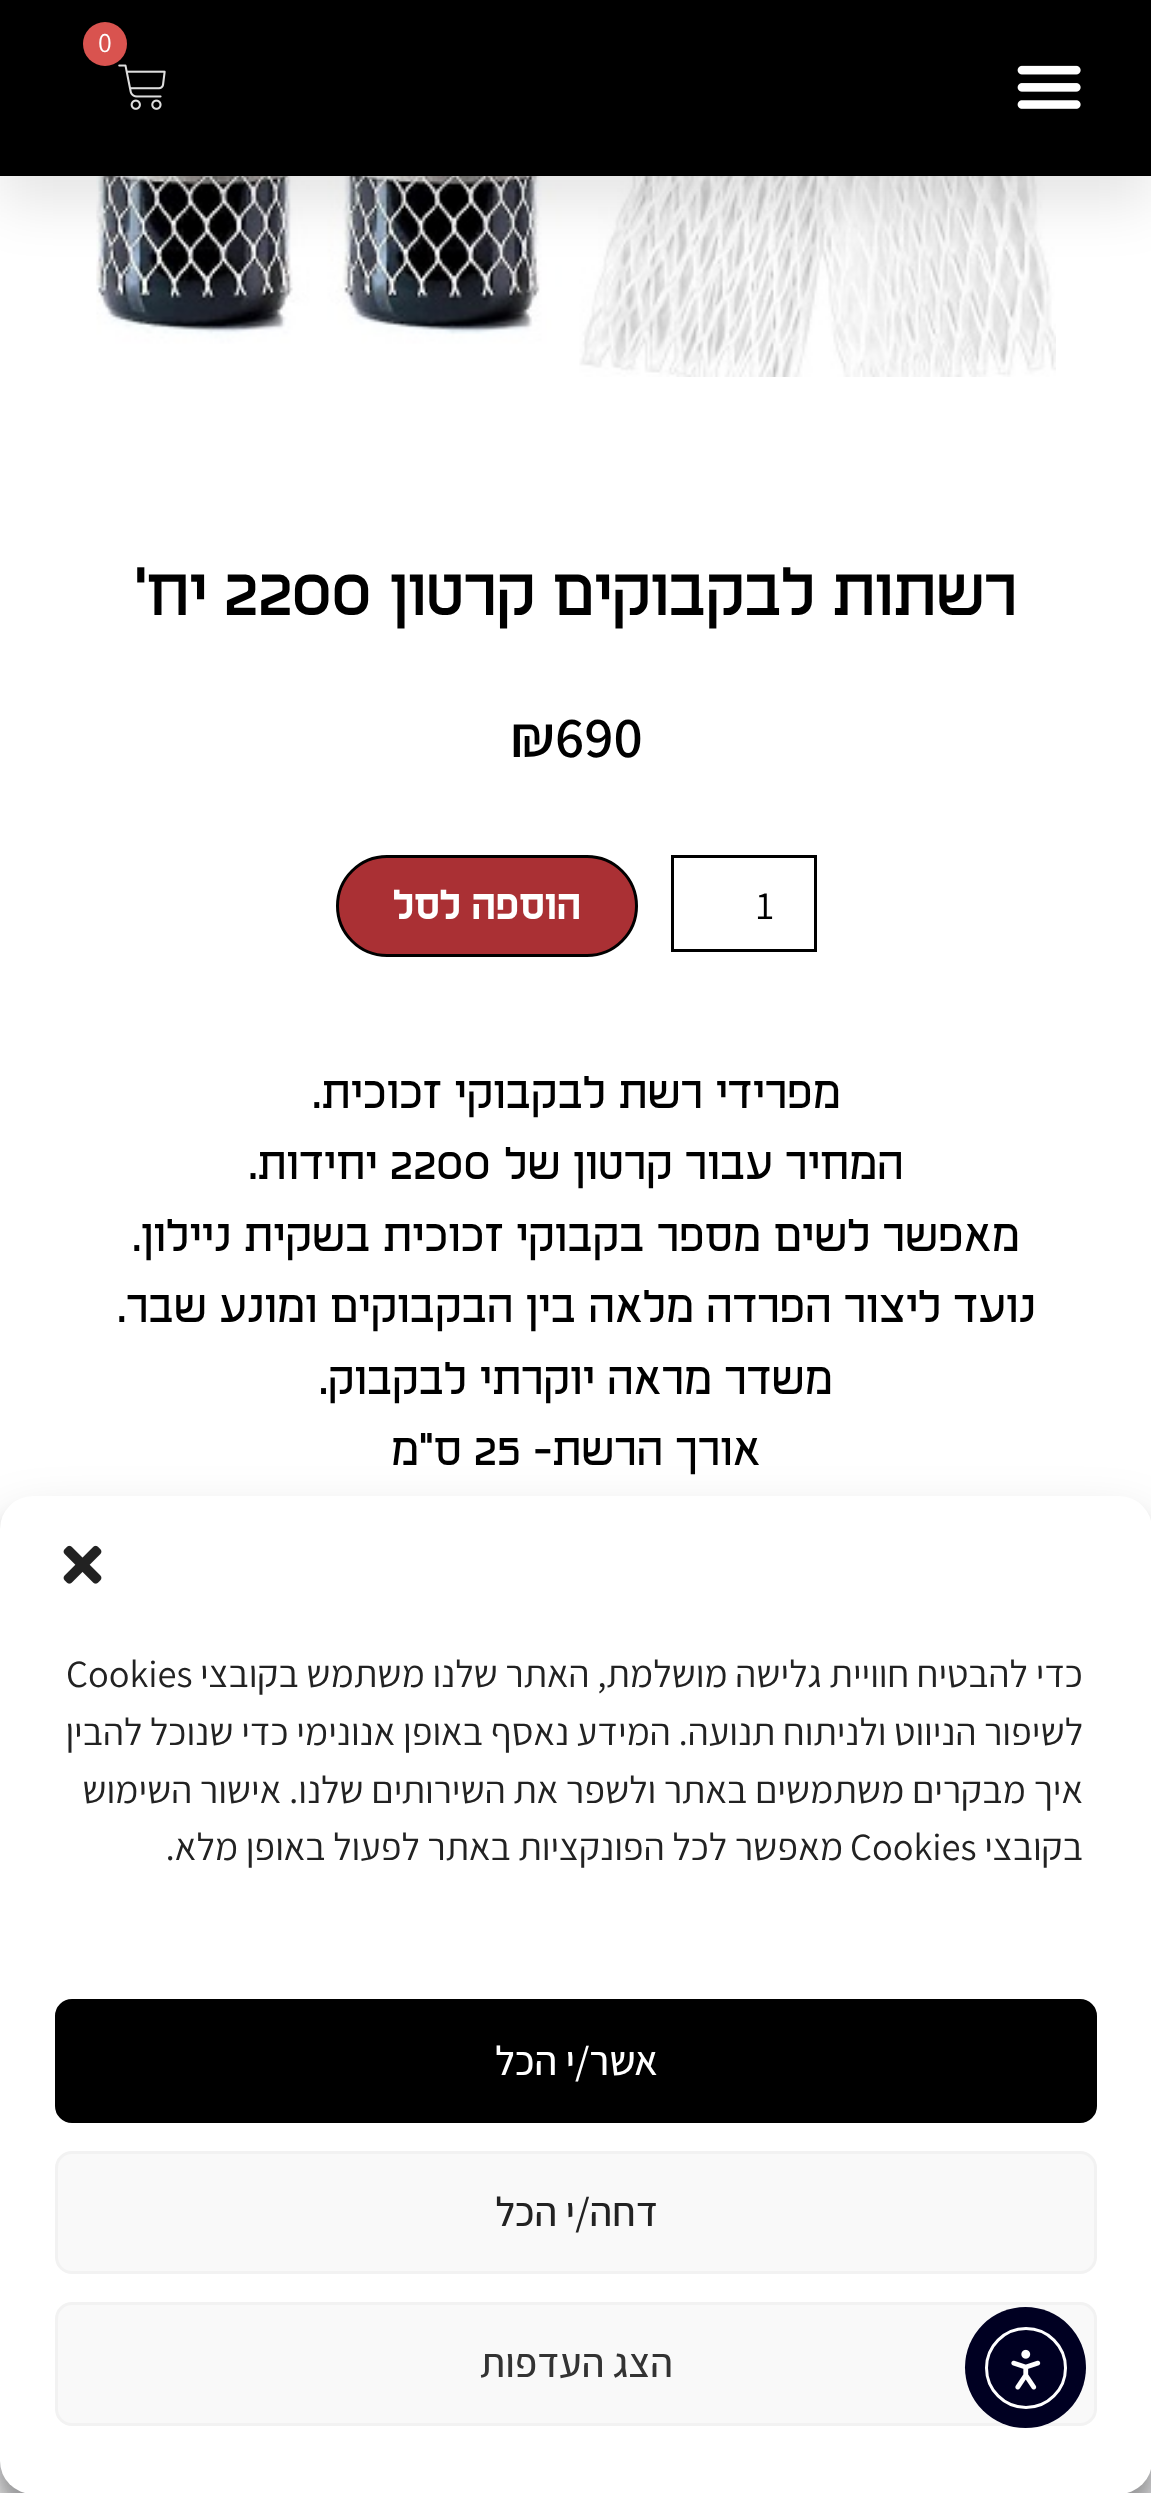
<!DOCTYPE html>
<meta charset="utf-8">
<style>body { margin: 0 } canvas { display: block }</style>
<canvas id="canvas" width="1151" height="2493"></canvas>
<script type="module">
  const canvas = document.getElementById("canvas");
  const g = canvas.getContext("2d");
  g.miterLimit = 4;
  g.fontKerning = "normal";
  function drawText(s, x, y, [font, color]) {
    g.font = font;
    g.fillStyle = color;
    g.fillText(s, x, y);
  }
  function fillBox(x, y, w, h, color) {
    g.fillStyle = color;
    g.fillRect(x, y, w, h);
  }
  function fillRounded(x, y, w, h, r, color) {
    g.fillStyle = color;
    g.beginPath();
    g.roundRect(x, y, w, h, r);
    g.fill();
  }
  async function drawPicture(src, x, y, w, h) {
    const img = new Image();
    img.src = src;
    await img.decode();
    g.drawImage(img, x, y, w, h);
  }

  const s1 = ["28px Assistant", "#FFFFFF"];
  const s2 = ["600 57.75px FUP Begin", "#000000"];
  const s3 = ["600 57.75px Assistant", "#000000"];
  const s4 = ["40px Assistant", "#000000"];
  const s5 = ["bold 35.75px FUP Begin", "#FFFFFF"];
  const s6 = ["500 38.5px FUP Begin", "#000000"];
  const s7 = ["38.5px Assistant", "#222222"];
  const s8 = ["500 41.25px Assistant", "#FFFFFF"];
  const s9 = ["500 41.25px Assistant", "#222222"];
  const s10 = ["500 41.25px Assistant", "#333333"];

  fillBox(0, 0, 1151, 2493, "#FFFFFF");
  await drawPicture("pic3.png", 96, 176, 960, 201);
  g.fillStyle = "rgba(0, 0, 0, 0.1)";
  g.filter = "blur(27.5px)";
  g.beginPath();
  g.rect(0, 28, 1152, 176);
  g.fill();
  g.filter = "none";
  fillBox(0, 0, 1151, 176, "#000000");
  await drawPicture("pic1.png", 118, 64, 48, 46);
  g.fillStyle = "#D9534F";
  g.beginPath();
  g.arc(105, 44, 22, 0, Math.PI * 2);
  g.fill();
  drawText("0", 98, 52, s1);
  await drawPicture("pic2.png", 1017, 65, 64, 44);
  g.direction = "rtl";
  drawText("רשתות לבקבוקים קרטון", 1017, 615, s2);
  g.direction = "ltr";
  drawText("2200", 224, 615, s2);
  g.direction = "rtl";
  drawText("יח'", 207, 615, s2);
  g.direction = "ltr";
  drawText("₪690", 510, 757, s3);
  g.strokeStyle = "#000000";
  g.lineWidth = 3;
  g.strokeRect(672.5, 856.5, 143, 94);
  drawText("1", 756, 919, s4);
  g.fillStyle = "#AA3034";
  g.beginPath();
  g.roundRect(337.5, 856.5, 299, 99, 49.5);
  g.fill();
  g.stroke();
  g.direction = "rtl";
  drawText("הוספה לסל", 581, 919, s5);
  g.letterSpacing = "0.8px";
  drawText("מפרידי רשת לבקבוקי זכוכית.", 841, 1108, s6);
  drawText("המחיר עבור קרטון של", 904, 1179, s6);
  g.direction = "ltr";
  drawText("2200", 390, 1179, s6);
  g.direction = "rtl";
  drawText("יחידות.", 378, 1179, s6);
  drawText("מאפשר לשים מספר בקבוקי זכוכית בשקית ניילון.", 1020, 1251, s6);
  drawText("נועד ליצור הפרדה מלאה בין הבקבוקים ומונע שבר.", 1036, 1322, s6);
  drawText("משדר מראה יוקרתי לבקבוק.", 833, 1394, s6);
  drawText("אורך הרשת-", 761, 1465, s6);
  g.direction = "ltr";
  drawText("25", 474, 1465, s6);
  g.direction = "rtl";
  drawText("ס\"מ", 462, 1465, s6);
  await drawPicture("pic4.png", 0, 2461, 1151, 32);
  g.fillStyle = "rgba(0, 0, 0, 0.23)";
  g.filter = "blur(8px)";
  g.beginPath();
  g.roundRect(0, 1513, 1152, 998, 33);
  g.fill();
  g.filter = "none";
  g.fillStyle = "rgba(0, 0, 0, 0.19)";
  g.filter = "blur(27.5px)";
  g.beginPath();
  g.roundRect(0, 1524, 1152, 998, 33);
  g.fill();
  g.filter = "none";
  fillRounded(0, 1496, 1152, 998, 33, "#FFFFFF");
  await drawPicture("pic5.png", 63, 1545, 39, 39);
  g.letterSpacing = "0px";
  drawText("כדי להבטיח חוויית גלישה מושלמת, האתר שלנו משתמש בקובצי", 1083, 1687, s7);
  g.direction = "ltr";
  drawText("Cookies", 66, 1687, s7);
  g.direction = "rtl";
  drawText("לשיפור הניווט ולניתוח תנועה. המידע נאסף באופן אנונימי כדי שנוכל להבין", 1083, 1745, s7);
  drawText("איך מבקרים משתמשים באתר ולשפר את השירותים שלנו. אישור השימוש", 1083, 1803, s7);
  drawText("בקובצי", 1083, 1860, s7);
  g.direction = "ltr";
  drawText("Cookies", 850, 1860, s7);
  g.direction = "rtl";
  drawText("מאפשר לכל הפונקציות באתר לפעול באופן מלא.", 843, 1860, s7);
  g.fillStyle = "#000000";
  g.beginPath();
  g.roundRect(56.5, 2000.5, 1039, 121, 15.5);
  g.fill();
  g.stroke();
  drawText("אשר/י הכל", 658, 2075, s8);
  g.fillStyle = "#F9F9F9";
  g.beginPath();
  g.roundRect(56.5, 2152.5, 1039, 120, 15.5);
  g.fill();
  g.strokeStyle = "#F2F2F2";
  g.stroke();
  drawText("דחה/י הכל", 658, 2226, s9);
  g.fillStyle = "#F9F9F9";
  g.beginPath();
  g.roundRect(56.5, 2303.5, 1039, 121, 15.5);
  g.fill();
  g.stroke();
  drawText("הצג העדפות", 673, 2377, s10);
  g.fillStyle = "#000022";
  g.beginPath();
  g.arc(1025.5, 2367.5, 60.5, 0, Math.PI * 2);
  g.fill();
  g.beginPath();
  g.arc(1026, 2368, 39.5, 0, Math.PI * 2);
  g.strokeStyle = "#FFFFFF";
  g.stroke();
  await drawPicture("pic6.png", 1011, 2349, 30, 41);
</script>
